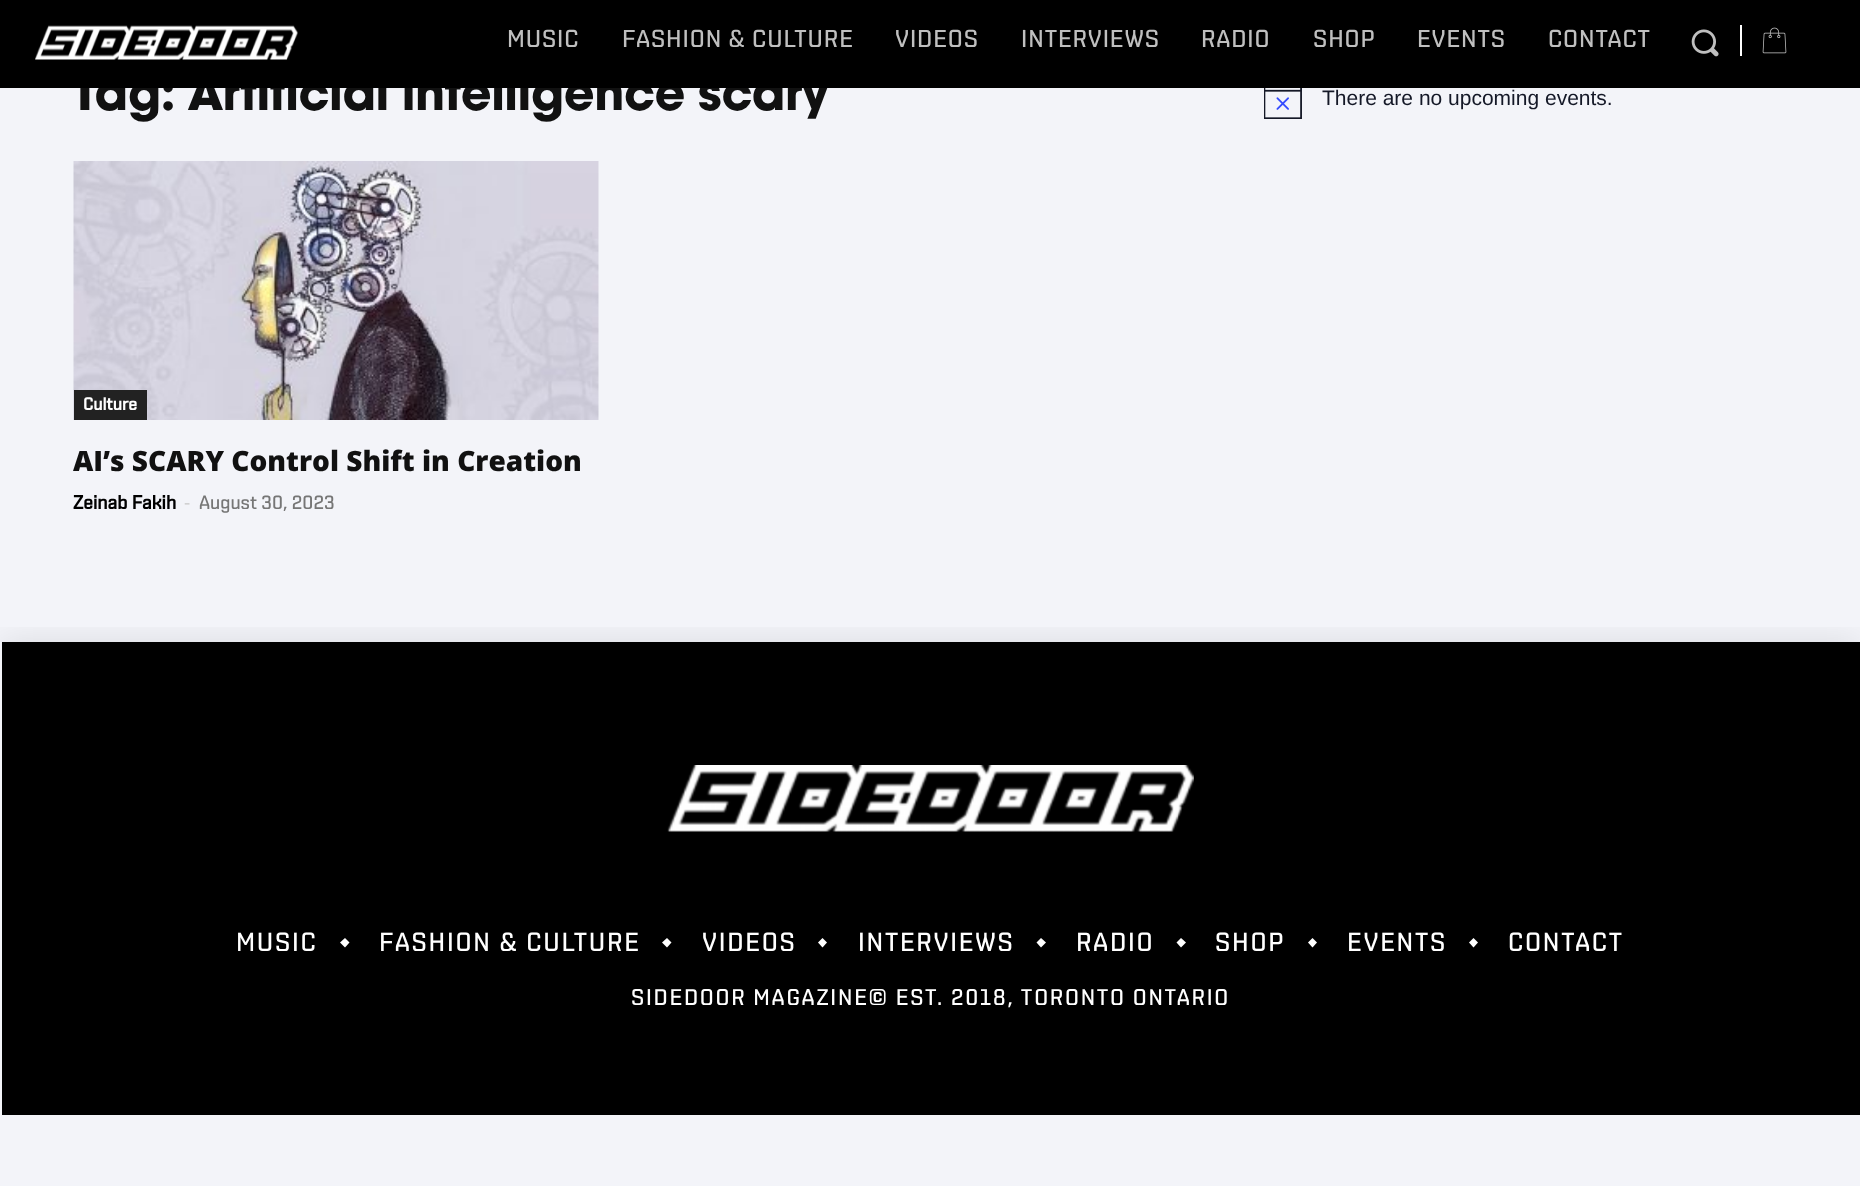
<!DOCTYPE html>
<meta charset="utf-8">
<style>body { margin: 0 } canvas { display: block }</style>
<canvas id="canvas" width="1860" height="1186"></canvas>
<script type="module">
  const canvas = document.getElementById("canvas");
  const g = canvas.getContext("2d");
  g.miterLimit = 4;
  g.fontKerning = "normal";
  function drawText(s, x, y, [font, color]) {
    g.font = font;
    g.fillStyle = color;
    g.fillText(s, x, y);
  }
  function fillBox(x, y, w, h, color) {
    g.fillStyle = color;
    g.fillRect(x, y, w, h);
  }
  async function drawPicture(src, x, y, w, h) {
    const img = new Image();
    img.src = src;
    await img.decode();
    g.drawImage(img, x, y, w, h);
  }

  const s1 = ["bold 52.5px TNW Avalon", "#111111"];
  const s2 = ["500 24.5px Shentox", "#BFBFBF"];
  const s3 = ["bold 17.5px Shentox", "#FFFFFF"];
  const s4 = ["800 28px Open Sans", "#111111"];
  const s5 = ["bold 19.25px Shentox", "#000000"];
  const s6 = ["19.25px Open Sans", "#CCCCCC"];
  const s7 = ["500 19.25px Shentox", "#767676"];
  const s8 = ["21px Liberation Sans", "#141827"];
  const s9 = ["500 26.25px Shentox", "#FFFFFF"];
  const s10 = ["500 22.75px Shentox", "#FFFFFF"];

  fillBox(0, 0, 1860, 1186, "#F3F4F9");
  drawText("Tag: Artificial intelligence scary", 73, 110, s1);
  fillBox(0, 0, 1860, 88, "#000000");
  await drawPicture("pic1.png", 35, 25, 263, 35);
  g.letterSpacing = "0.9px";
  drawText("MUSIC", 507, 47, s2);
  drawText("FASHION & CULTURE", 622, 47, s2);
  drawText("VIDEOS", 895, 47, s2);
  drawText("INTERVIEWS", 1021, 47, s2);
  drawText("RADIO", 1201, 47, s2);
  drawText("SHOP", 1313, 47, s2);
  drawText("EVENTS", 1417, 47, s2);
  drawText("CONTACT", 1548, 47, s2);
  await drawPicture("pic2.png", 1691, 29, 28, 28);
  fillBox(1740, 25, 2, 31, "#FFFFFF");
  await drawPicture("pic3.png", 1762, 27, 25, 27);
  await drawPicture("pic4.png", 73, 161, 526, 259);
  fillBox(74, 390, 73, 30, "#222222");
  g.letterSpacing = "0px";
  drawText("Culture", 83, 410, s3);
  drawText("AI’s SCARY Control Shift in Creation", 73, 471, s4);
  drawText("Zeinab Fakih", 73, 509, s5);
  drawText("-", 184, 509, s6);
  drawText("August 30, 2023", 199, 509, s7);
  await drawPicture("pic5.png", 1264, 88, 38, 31);
  drawText("There are no upcoming events.", 1322, 105, s8);
  g.save();
  g.beginPath();
  g.rect(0, 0, 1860, 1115);
  g.clip();
  g.beginPath();
  g.rect(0, 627, 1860, 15);
  g.clip();
  g.fillStyle = "rgba(0, 0, 0, 0.1)";
  g.filter = "blur(17.5px)";
  g.beginPath();
  g.rect(0, 642, 1860, 473);
  g.fill();
  g.filter = "none";
  g.restore();
  fillBox(2, 642, 1858, 473, "#000000");
  await drawPicture("pic6.png", 667, 765, 527, 67);
  g.letterSpacing = "1.75px";
  drawText("MUSIC", 236, 951, s9);
  g.beginPath();
  g.moveTo(349.5, 942.5);
  g.lineTo(345, 947.5);
  g.lineTo(340, 942.5);
  g.lineTo(345, 938);
  g.closePath();
  g.fill();
  drawText("FASHION & CULTURE", 379, 951, s9);
  g.beginPath();
  g.moveTo(671.5, 942.5);
  g.lineTo(667, 947.5);
  g.lineTo(662, 942.5);
  g.lineTo(667, 938);
  g.closePath();
  g.fill();
  drawText("VIDEOS", 702, 951, s9);
  g.beginPath();
  g.moveTo(827, 942.5);
  g.lineTo(822.5, 947.5);
  g.lineTo(818, 942.5);
  g.lineTo(822.5, 938);
  g.closePath();
  g.fill();
  drawText("INTERVIEWS", 858, 951, s9);
  g.beginPath();
  g.moveTo(1046, 942.5);
  g.lineTo(1041, 947.5);
  g.lineTo(1036.5, 942.5);
  g.lineTo(1041, 938);
  g.closePath();
  g.fill();
  drawText("RADIO", 1076, 951, s9);
  g.beginPath();
  g.moveTo(1186, 942.5);
  g.lineTo(1181, 947.5);
  g.lineTo(1176.5, 942.5);
  g.lineTo(1181, 938);
  g.closePath();
  g.fill();
  drawText("SHOP", 1215, 951, s9);
  g.beginPath();
  g.moveTo(1317, 942.5);
  g.lineTo(1312.5, 947.5);
  g.lineTo(1308, 942.5);
  g.lineTo(1312.5, 938);
  g.closePath();
  g.fill();
  drawText("EVENTS", 1347, 951, s9);
  g.beginPath();
  g.moveTo(1478, 942.5);
  g.lineTo(1473.5, 947.5);
  g.lineTo(1469, 942.5);
  g.lineTo(1473.5, 938);
  g.closePath();
  g.fill();
  drawText("CONTACT", 1508, 951, s9);
  drawText("SIDEDOOR MAGAZINE© EST. 2018, TORONTO ONTARIO", 631, 1005, s10);
</script>
